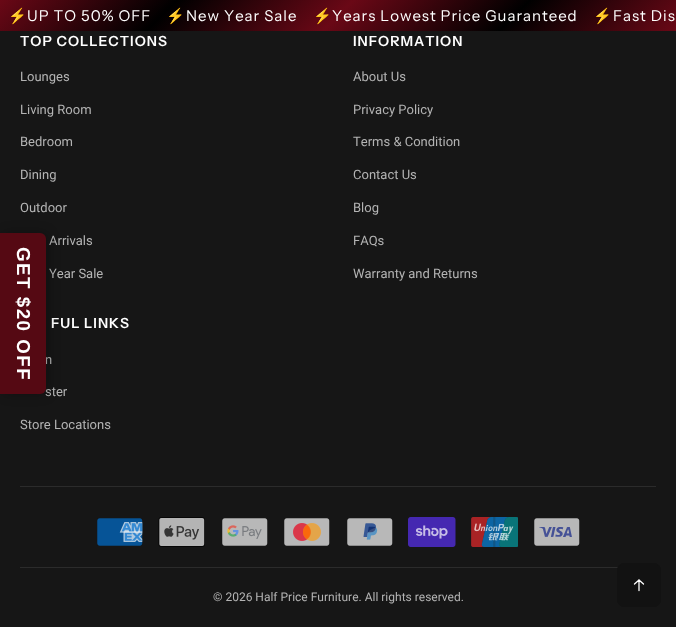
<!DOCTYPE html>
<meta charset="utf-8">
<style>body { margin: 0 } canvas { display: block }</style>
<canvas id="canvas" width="676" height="627"></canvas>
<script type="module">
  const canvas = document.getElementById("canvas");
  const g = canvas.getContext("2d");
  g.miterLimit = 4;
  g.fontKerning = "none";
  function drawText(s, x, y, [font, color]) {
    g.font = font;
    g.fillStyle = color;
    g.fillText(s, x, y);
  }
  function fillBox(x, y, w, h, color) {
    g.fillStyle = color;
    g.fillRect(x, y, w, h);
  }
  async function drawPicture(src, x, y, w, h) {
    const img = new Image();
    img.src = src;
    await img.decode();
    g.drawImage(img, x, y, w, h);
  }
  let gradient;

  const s1 = ["15px Noto Color Emoji", "#FFFFFF"];
  const s2 = ["15px Instrument Sans", "#FFFFFF"];
  const s3 = ["600 14px Instrument Sans", "#FFFFFF"];
  const s4 = ["13px Roboto", "#B4B4B4"];
  const s5 = ["12px Roboto", "#B4B4B4"];

  fillBox(0, 0, 676, 627, "#161616");
  gradient = g.createLinearGradient(161, -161, 515, 192);
  gradient.addColorStop(0, "#6A0816");
  gradient.addColorStop(0.25, "#000000");
  gradient.addColorStop(0.5, "#6A0816");
  gradient.addColorStop(0.75, "#000000");
  gradient.addColorStop(1, "#6A0816");
  g.fillStyle = gradient;
  g.fillRect(0, 0, 676, 31);
  g.letterSpacing = "1px";
  drawText("⚡", 8, 21, s1);
  drawText("UP TO 50% OFF", 27, 21, s2);
  drawText("⚡", 166, 21, s1);
  drawText("New Year Sale", 186, 21, s2);
  drawText("⚡", 313, 21, s1);
  drawText("Years Lowest Price Guaranteed", 332, 21, s2);
  drawText("⚡", 593, 21, s1);
  drawText("Fast Dis", 613, 21, s2);
  drawText("TOP COLLECTIONS", 20, 46, s3);
  g.letterSpacing = "0px";
  drawText("Lounges", 20, 81, s4);
  drawText("Living Room", 20, 114, s4);
  drawText("Bedroom", 20, 146, s4);
  drawText("Dining", 20, 179, s4);
  drawText("Outdoor", 20, 212, s4);
  drawText("Arrivals", 49, 245, s4);
  drawText("Year Sale", 49, 278, s4);
  g.letterSpacing = "1px";
  drawText("INFORMATION", 353, 46, s3);
  g.letterSpacing = "0px";
  drawText("About Us", 353, 81, s4);
  drawText("Privacy Policy", 353, 114, s4);
  drawText("Terms & Condition", 353, 146, s4);
  drawText("Contact Us", 353, 179, s4);
  drawText("Blog", 353, 212, s4);
  drawText("FAQs", 353, 245, s4);
  drawText("Warranty and Returns", 353, 278, s4);
  g.letterSpacing = "1px";
  drawText("FUL LINKS", 51, 328, s3);
  g.letterSpacing = "0px";
  drawText("n", 45, 364, s4);
  drawText("ster", 45, 396, s4);
  drawText("Store Locations", 20, 429, s4);
  fillBox(20, 486, 636, 1, "#2B2B2B");
  await drawPicture("pic1.png", 97, 518, 46, 28);
  await drawPicture("pic2.png", 158, 517, 47, 30);
  await drawPicture("pic3.png", 222, 518, 46, 28);
  await drawPicture("pic4.png", 284, 518, 46, 28);
  await drawPicture("pic5.png", 347, 518, 46, 28);
  await drawPicture("pic6.png", 408, 517, 48, 30);
  await drawPicture("pic7.png", 471, 517, 47, 30);
  await drawPicture("pic8.png", 534, 518, 46, 28);
  fillBox(20, 567, 598, 1, "#2B2B2B");
  drawText("© 2026 Half Price Furniture. All rights reserved.", 213, 601, s5);
  g.fillStyle = "rgba(0, 0, 0, 0.3)";
  g.filter = "blur(6px)";
  g.beginPath();
  g.roundRect(2, 233, 46, 161, 6);
  g.fill();
  g.filter = "none";
  gradient = g.createLinearGradient(-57, 291, 150, 498);
  gradient.addColorStop(0, "#550913");
  gradient.addColorStop(0.5, "#550913");
  gradient.addColorStop(0.75, "#000000");
  gradient.addColorStop(1, "#000000");
  g.fillStyle = gradient;
  g.beginPath();
  g.roundRect(0, 233, 46, 161, [0, 6, 6, 0]);
  g.fill();
  g.letterSpacing = "1.5px";
  g.font = "bold 18.75px Liberation Sans";
  g.fillStyle = "#FFFFFF";
  g.save();
  g.translate(17, 247);
  g.rotate(90 * Math.PI / 180);
  g.fillText("GET $20 OFF", 0, 0);
  g.restore();
  g.fillStyle = "#121212";
  g.beginPath();
  g.roundRect(617.5, 563.5, 43, 43, 6.5);
  g.fill();
  g.strokeStyle = "#121212";
  g.stroke();
  g.beginPath();
  g.moveTo(643.5, 584);
  g.lineTo(639, 580);
  g.moveTo(639, 580);
  g.lineTo(634.5, 584);
  g.moveTo(639, 580);
  g.lineTo(639, 590.5);
  g.strokeStyle = "#FFFFFF";
  g.lineWidth = 1.3;
  g.lineCap = "round";
  g.lineJoin = "round";
  g.stroke();
</script>
